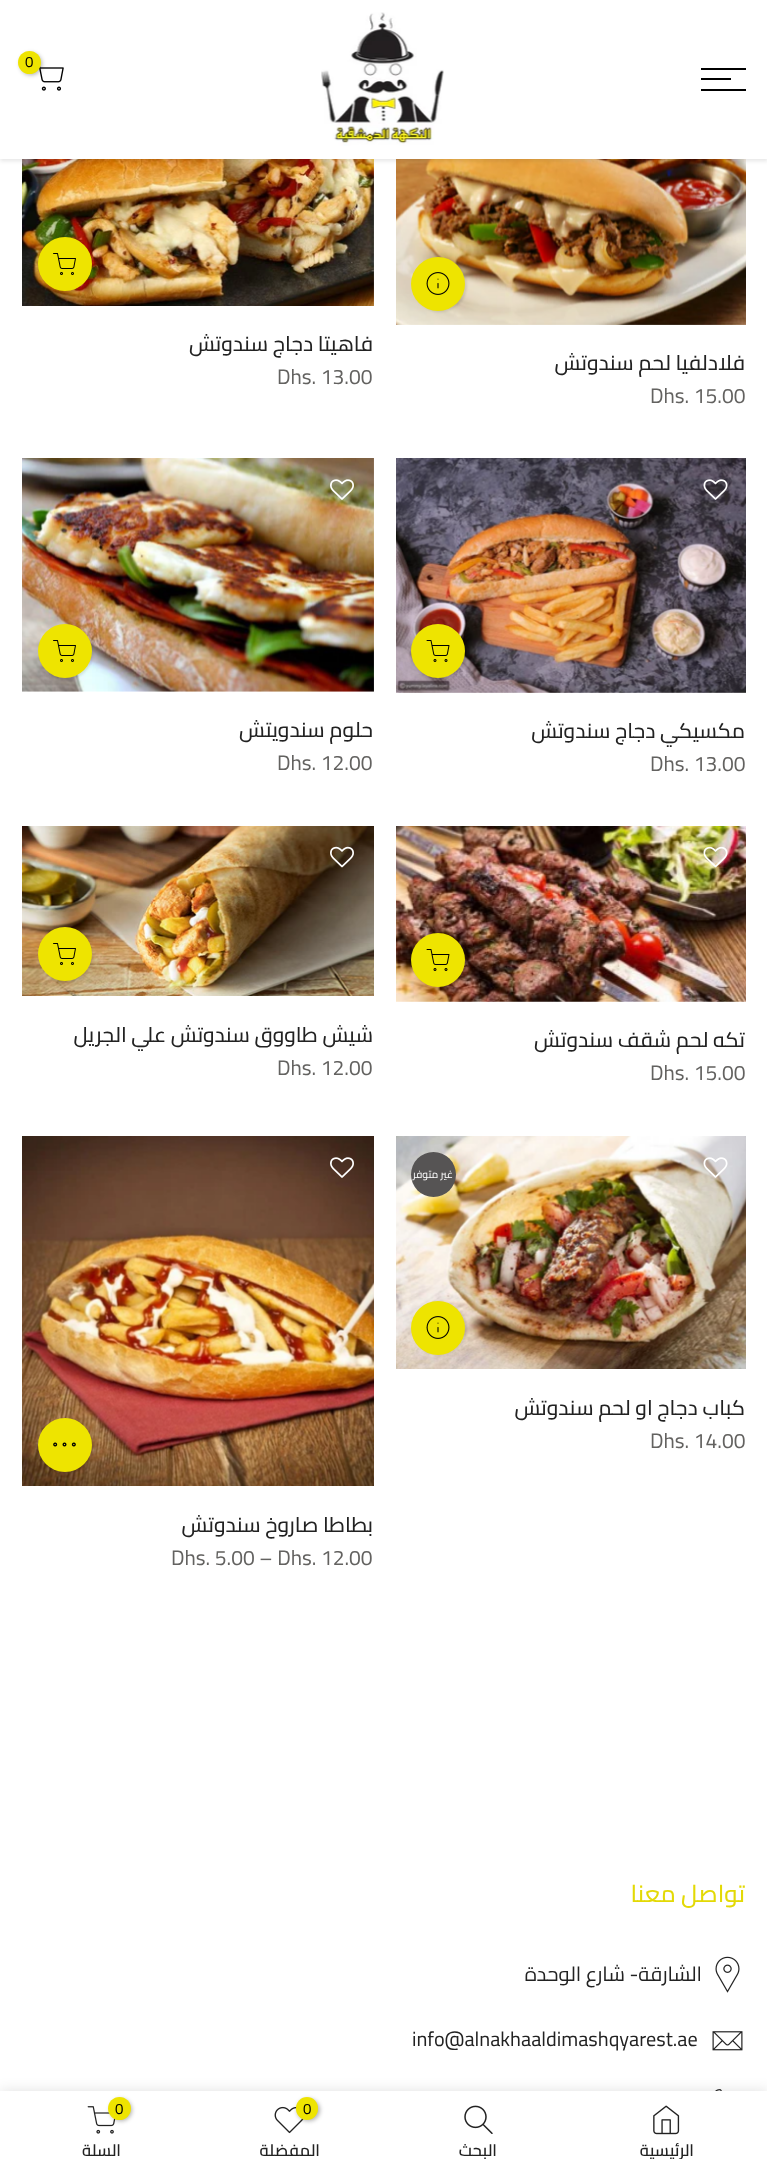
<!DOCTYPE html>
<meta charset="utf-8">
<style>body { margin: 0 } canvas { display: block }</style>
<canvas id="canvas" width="767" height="2173"></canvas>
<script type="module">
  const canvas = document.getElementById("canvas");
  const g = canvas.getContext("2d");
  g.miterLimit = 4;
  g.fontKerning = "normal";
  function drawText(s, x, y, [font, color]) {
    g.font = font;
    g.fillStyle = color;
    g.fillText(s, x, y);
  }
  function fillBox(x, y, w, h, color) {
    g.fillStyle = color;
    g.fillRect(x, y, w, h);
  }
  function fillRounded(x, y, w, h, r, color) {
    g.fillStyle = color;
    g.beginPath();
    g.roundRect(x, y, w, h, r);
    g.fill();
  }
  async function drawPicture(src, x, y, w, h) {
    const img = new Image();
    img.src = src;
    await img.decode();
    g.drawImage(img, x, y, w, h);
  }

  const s1 = ["15px Cairo", "#000000"];
  const s2 = ["500 21px Cairo", "#222222"];
  const s3 = ["21px Cairo", "#636260"];
  const s4 = ["10.5px Cairo", "#FFFFFF"];
  const s5 = ["500 24px Cairo", "#E3D905"];
  const s6 = ["20.25px Cairo", "#222222"];
  const s7 = ["600 16.5px Cairo", "#222222"];

  fillBox(0, 0, 767, 2173, "#FFFFFF");
  await drawPicture("pic3.png", 396, 159, 350, 166);
  await drawPicture("pic5.png", 22, 159, 352, 147);
  g.fillStyle = "rgba(0, 0, 0, 0.1)";
  g.filter = "blur(2px)";
  g.beginPath();
  g.rect(0, 2, 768, 159);
  g.fill();
  g.filter = "none";
  fillBox(0, 0, 767, 159, "#FFFFFF");
  await drawPicture("pic1.png", 321, 12, 123, 134);
  await drawPicture("pic2.png", 39, 66, 25, 25);
  g.fillStyle = "rgba(0, 0, 0, 0.3)";
  g.filter = "blur(2px)";
  g.beginPath();
  g.roundRect(20, 53, 22, 22, 11);
  g.fill();
  g.filter = "none";
  g.fillStyle = "#EEE400";
  g.beginPath();
  g.arc(29.5, 62.5, 11.5, 0, Math.PI * 2);
  g.fill();
  drawText("0", 25, 67, s1);
  fillBox(701, 68, 45, 2, "#000000");
  fillBox(701, 78, 30, 2, "#000000");
  fillBox(701, 89, 45, 2, "#000000");
  g.fillStyle = "rgba(0, 0, 0, 0.1)";
  g.filter = "blur(1px)";
  g.beginPath();
  g.roundRect(413, 258, 54, 54, 27);
  g.fill();
  g.filter = "none";
  g.fillStyle = "#EEE400";
  g.beginPath();
  g.arc(438, 284, 27, 0, Math.PI * 2);
  g.fill();
  await drawPicture("pic4.png", 426, 272, 24, 23);
  g.beginPath();
  g.moveTo(429, 292.5);
  g.bezierCurveTo(424, 287.5, 424, 279.5, 429, 274.5);
  g.strokeStyle = "#EEE400";
  g.lineWidth = 1.5;
  g.stroke();
  g.direction = "rtl";
  drawText("فلادلفيا لحم سندوتش", 745, 370, s2);
  g.direction = "ltr";
  drawText("Dhs. 15.00", 650, 403, s3);
  g.fillStyle = "rgba(0, 0, 0, 0.1)";
  g.filter = "blur(1px)";
  g.beginPath();
  g.roundRect(39, 239, 54, 54, 27);
  g.fill();
  g.filter = "none";
  g.fillStyle = "#EEE400";
  g.beginPath();
  g.arc(65, 264, 27, 0, Math.PI * 2);
  g.fill();
  await drawPicture("pic6.png", 53, 253, 23, 22);
  g.direction = "rtl";
  drawText("فاهيتا دجاج سندوتش", 373, 351, s2);
  g.direction = "ltr";
  drawText("Dhs. 13.00", 277, 384, s3);
  await drawPicture("pic7.png", 396, 458, 350, 235);
  await drawPicture("pic8.png", 703, 479, 25, 21);
  g.fillStyle = "rgba(0, 0, 0, 0.1)";
  g.filter = "blur(1px)";
  g.beginPath();
  g.roundRect(413, 626, 54, 54, 27);
  g.fill();
  g.filter = "none";
  g.fillStyle = "#EEE400";
  g.beginPath();
  g.arc(438, 651, 27, 0, Math.PI * 2);
  g.fill();
  await drawPicture("pic9.png", 426, 640, 24, 22);
  g.direction = "rtl";
  drawText("مكسيكي دجاج سندوتش", 745, 738, s2);
  g.direction = "ltr";
  drawText("Dhs. 13.00", 650, 771, s3);
  await drawPicture("pic10.png", 22, 458, 352, 234);
  await drawPicture("pic11.png", 330, 479, 24, 21);
  g.fillStyle = "rgba(0, 0, 0, 0.1)";
  g.filter = "blur(1px)";
  g.beginPath();
  g.roundRect(39, 626, 54, 54, 27);
  g.fill();
  g.filter = "none";
  g.fillStyle = "#EEE400";
  g.beginPath();
  g.arc(65, 651, 27, 0, Math.PI * 2);
  g.fill();
  await drawPicture("pic6.png", 53, 640, 23, 22);
  g.direction = "rtl";
  drawText("حلوم سندويتش", 373, 737, s2);
  g.direction = "ltr";
  drawText("Dhs. 12.00", 277, 770, s3);
  await drawPicture("pic12.png", 396, 826, 350, 176);
  await drawPicture("pic13.png", 703, 846, 25, 22);
  g.fillStyle = "rgba(0, 0, 0, 0.1)";
  g.filter = "blur(1px)";
  g.beginPath();
  g.roundRect(413, 935, 54, 54, 27);
  g.fill();
  g.filter = "none";
  g.fillStyle = "#EEE400";
  g.beginPath();
  g.arc(438, 960, 27, 0, Math.PI * 2);
  g.fill();
  await drawPicture("pic9.png", 426, 949, 24, 22);
  g.direction = "rtl";
  drawText("تكه لحم شقف سندوتش", 745, 1047, s2);
  g.direction = "ltr";
  drawText("Dhs. 15.00", 650, 1080, s3);
  await drawPicture("pic14.png", 22, 826, 352, 170);
  await drawPicture("pic15.png", 330, 846, 24, 22);
  g.fillStyle = "rgba(0, 0, 0, 0.1)";
  g.filter = "blur(1px)";
  g.beginPath();
  g.roundRect(39, 929, 54, 54, 27);
  g.fill();
  g.filter = "none";
  g.fillStyle = "#EEE400";
  g.beginPath();
  g.arc(65, 954, 27, 0, Math.PI * 2);
  g.fill();
  await drawPicture("pic6.png", 53, 943, 23, 22);
  g.direction = "rtl";
  drawText("شيش طاووق سندوتش علي الجريل", 373, 1042, s2);
  g.direction = "ltr";
  drawText("Dhs. 12.00", 277, 1075, s3);
  await drawPicture("pic16.png", 396, 1136, 350, 233);
  await drawPicture("pic17.png", 703, 1157, 25, 21);
  g.fillStyle = "#565454";
  g.beginPath();
  g.arc(433.5, 1174.5, 22.5, 0, Math.PI * 2);
  g.fill();
  g.direction = "rtl";
  drawText("غير متوفر", 453, 1178, s4);
  g.fillStyle = "rgba(0, 0, 0, 0.1)";
  g.filter = "blur(1px)";
  g.beginPath();
  g.roundRect(413, 1302, 54, 54, 27);
  g.fill();
  g.filter = "none";
  g.fillStyle = "#EEE400";
  g.beginPath();
  g.arc(438, 1328, 27, 0, Math.PI * 2);
  g.fill();
  await drawPicture("pic4.png", 426, 1316, 24, 23);
  g.beginPath();
  g.moveTo(429, 1336.5);
  g.bezierCurveTo(424, 1331.5, 424, 1323.5, 429, 1318.5);
  g.stroke();
  drawText("كباب دجاج او لحم سندوتش", 745, 1415, s2);
  g.direction = "ltr";
  drawText("Dhs. 14.00", 650, 1448, s3);
  await drawPicture("pic18.png", 22, 1136, 352, 350);
  await drawPicture("pic19.png", 330, 1157, 24, 21);
  g.fillStyle = "rgba(0, 0, 0, 0.1)";
  g.filter = "blur(1px)";
  g.beginPath();
  g.roundRect(39, 1419, 54, 54, 27);
  g.fill();
  g.filter = "none";
  g.fillStyle = "#EEE400";
  g.beginPath();
  g.arc(65, 1445, 27, 0, Math.PI * 2);
  g.fill();
  await drawPicture("pic20.png", 53, 1442, 23, 5);
  g.direction = "rtl";
  drawText("بطاطا صاروخ سندوتش", 373, 1532, s2);
  g.direction = "ltr";
  drawText("Dhs. 5.00 – Dhs. 12.00", 171, 1565, s3);
  g.direction = "rtl";
  drawText("تواصل معنا", 745, 1902, s5);
  await drawPicture("pic21.png", 715, 1956, 25, 37);
  drawText("الشارقة- شارع الوحدة", 702, 1981, s6);
  await drawPicture("pic22.png", 712, 2031, 31, 20);
  g.direction = "ltr";
  drawText("info@alnakhaaldimashqyarest.ae", 412, 2046, s6);
  await drawPicture("pic23.png", 715, 2089, 7, 2);
  g.fillStyle = "rgba(0, 0, 0, 0.12)";
  g.filter = "blur(7px)";
  g.beginPath();
  g.rect(0, 2091, 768, 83);
  g.fill();
  g.filter = "none";
  fillBox(0, 2091, 767, 82, "#FFFFFF");
  await drawPicture("pic24.png", 653, 2105, 27, 30);
  g.save();
  g.beginPath();
  g.rect(588, 2142, 158, 17);
  g.clip();
  g.direction = "rtl";
  drawText("الرئيسية", 694, 2156, s7);
  g.restore();
  await drawPicture("pic25.png", 464, 2105, 29, 29);
  g.direction = "rtl";
  drawText("البحث", 497, 2156, s7);
  await drawPicture("pic26.png", 274, 2106, 30, 28);
  g.fillStyle = "rgba(0, 0, 0, 0.3)";
  g.filter = "blur(2px)";
  g.beginPath();
  g.roundRect(297, 2099, 23, 22, 11);
  g.fill();
  g.filter = "none";
  fillRounded(296, 2097, 22, 23, 11, "#EEE400");
  g.direction = "ltr";
  drawText("0", 303, 2114, s1);
  g.direction = "rtl";
  drawText("المفضلة", 320, 2156, s7);
  await drawPicture("pic27.png", 87, 2106, 29, 28);
  g.fillStyle = "rgba(0, 0, 0, 0.3)";
  g.filter = "blur(2px)";
  g.beginPath();
  g.roundRect(110, 2099, 22, 22, 11);
  g.fill();
  g.filter = "none";
  g.fillStyle = "#EEE400";
  g.beginPath();
  g.arc(119.5, 2108.5, 11.5, 0, Math.PI * 2);
  g.fill();
  g.direction = "ltr";
  drawText("0", 115, 2114, s1);
  g.direction = "rtl";
  drawText("السلة", 121, 2156, s7);
</script>
